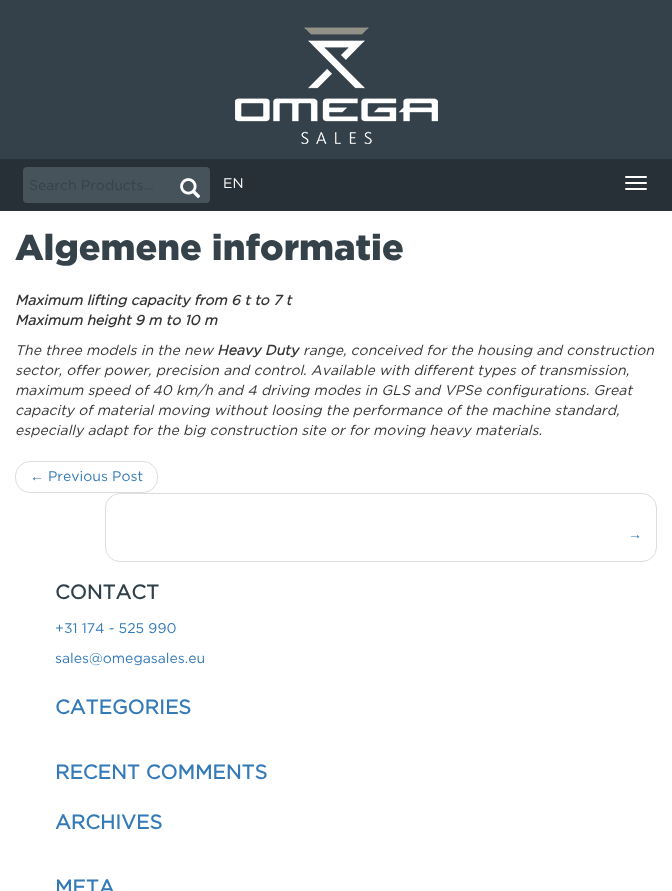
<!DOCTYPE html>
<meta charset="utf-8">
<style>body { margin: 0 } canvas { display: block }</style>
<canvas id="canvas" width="672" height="891"></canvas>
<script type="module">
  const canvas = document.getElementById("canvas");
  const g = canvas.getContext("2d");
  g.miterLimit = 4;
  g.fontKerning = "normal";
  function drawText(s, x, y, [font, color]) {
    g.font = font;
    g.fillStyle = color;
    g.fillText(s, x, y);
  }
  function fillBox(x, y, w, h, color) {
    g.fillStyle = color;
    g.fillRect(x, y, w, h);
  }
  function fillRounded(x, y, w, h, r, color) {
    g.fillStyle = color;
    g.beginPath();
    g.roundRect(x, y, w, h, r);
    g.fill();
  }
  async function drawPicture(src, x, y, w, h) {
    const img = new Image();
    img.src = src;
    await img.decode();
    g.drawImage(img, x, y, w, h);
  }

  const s1 = ["14px Gotham", "#35424A"];
  const s2 = ["14px Gotham", "#FFFFFF"];
  const s3 = ["900 36px Gotham", "#35424A"];
  const s4 = ["italic bold 14px Gotham", "#333333"];
  const s5 = ["italic 14px Gotham", "#333333"];
  const s6 = ["14px Liberation Serif", "#337AB7"];
  const s7 = ["14px Gotham", "#337AB7"];
  const s8 = ["bold 20px Gotham", "#2F404A"];
  const s9 = ["bold 20px Gotham", "#337AB7"];

  fillBox(0, 0, 672, 891, "#FFFFFF");
  fillBox(0, 0, 672, 159, "#34414A");
  await drawPicture("pic1.png", 235, 27, 203, 117);
  fillBox(0, 159, 672, 52, "#273037");
  fillRounded(23, 167, 187, 36, 4, "#47535B");
  drawText("Search Products…", 29, 190, s1);
  await drawPicture("pic2.png", 180, 178, 21, 21);
  drawText("EN", 223, 188, s2);
  fillRounded(625, 176, 22, 2, 1, "#FFFFFF");
  fillRounded(625, 182, 22, 2, 1, "#FFFFFF");
  fillRounded(625, 188, 22, 2, 1, "#FFFFFF");
  drawText("Algemene informatie", 15, 260, s3);
  drawText("Maximum lifting capacity from 6 t to 7 t", 15, 305, s4);
  drawText("Maximum height 9 m to 10 m", 15, 325, s4);
  drawText("The three models in the new", 15, 355, s5);
  drawText("Heavy Duty", 217, 355, s4);
  drawText("range, conceived for the housing and construction", 303, 355, s5);
  drawText("sector, offer power, precision and control. Available with different types of transmission,", 15, 375, s5);
  drawText("maximum speed of 40 km/h and 4 driving modes in GLS and VPSe configurations. Great", 15, 395, s5);
  drawText("capacity of material moving without loosing the performance of the machine standard,", 15, 415, s5);
  drawText("especially adapt for the big construction site or for moving heavy materials.", 15, 435, s5);
  g.beginPath();
  g.roundRect(15.5, 461.5, 142, 31, 14.5);
  g.strokeStyle = "#DDDDDD";
  g.stroke();
  drawText("←", 30, 481, s6);
  drawText("Previous Post", 48, 481, s7);
  g.beginPath();
  g.roundRect(105.5, 493.5, 551, 68, 14.5);
  g.stroke();
  drawText("→", 628, 539, s6);
  drawText("CONTACT", 55, 599, s8);
  drawText("+31 174 - 525 990", 55, 633, s7);
  drawText("sales@omegasales.eu", 55, 663, s7);
  drawText("CATEGORIES", 55, 714, s9);
  drawText("RECENT COMMENTS", 55, 779, s9);
  drawText("ARCHIVES", 55, 829, s9);
  drawText("META", 55, 894, s9);
</script>
